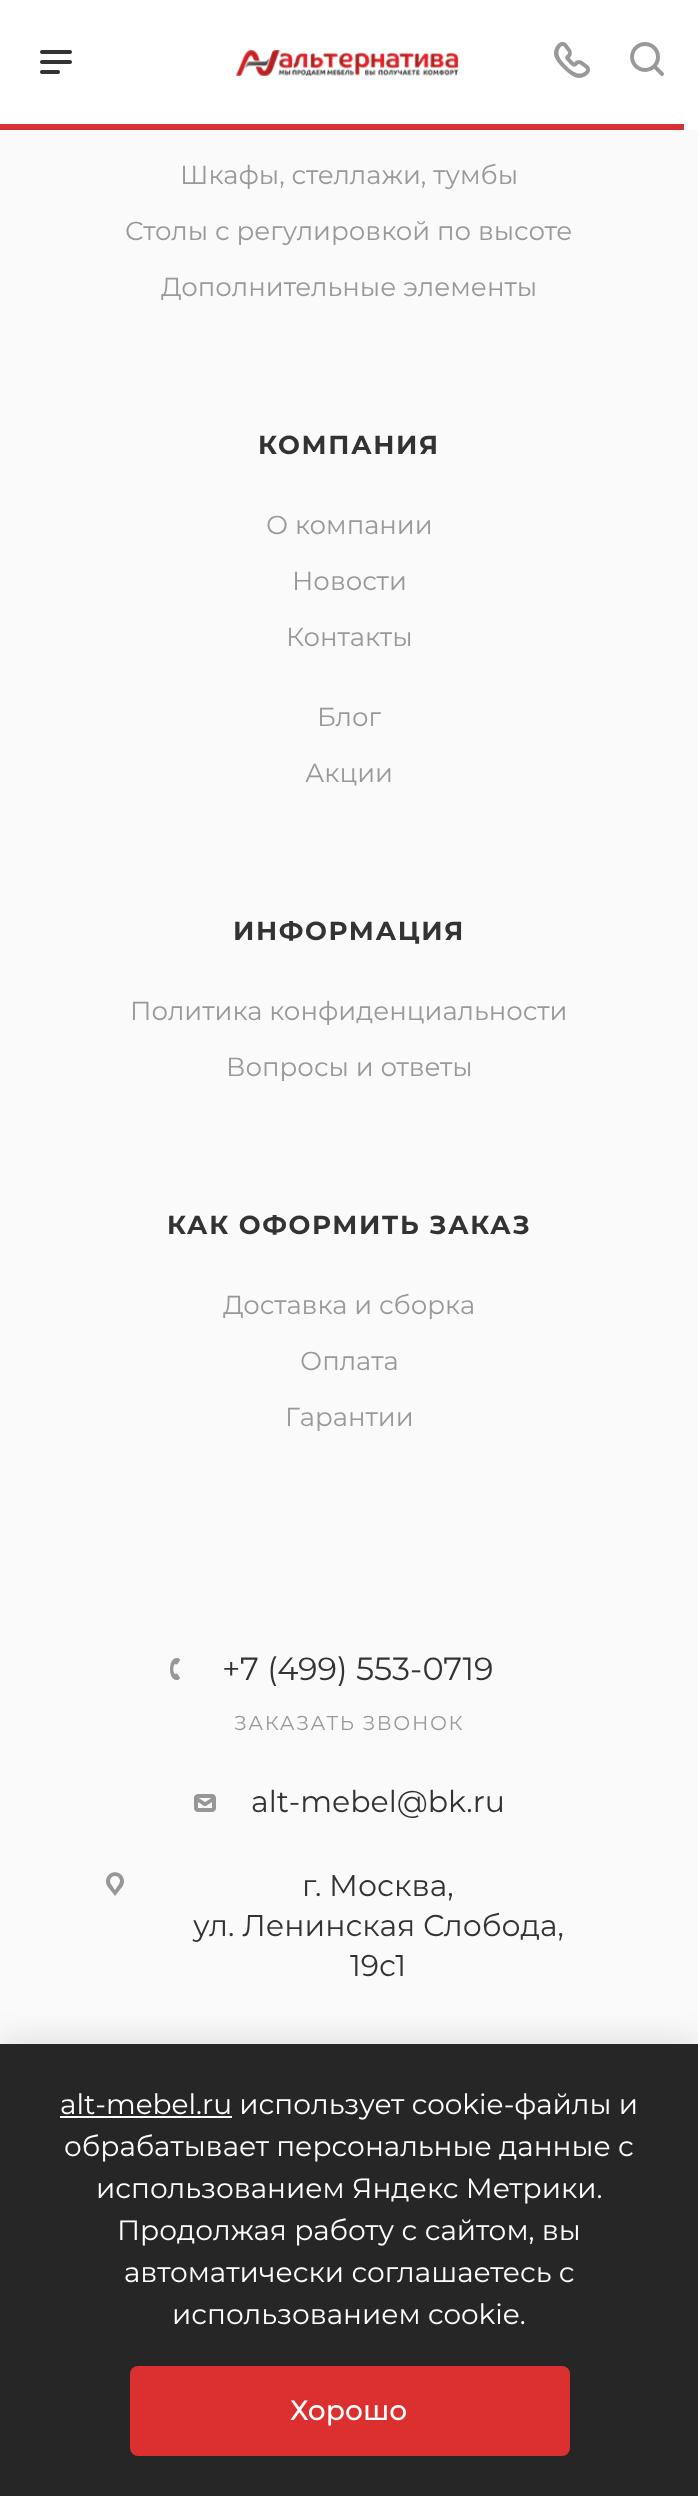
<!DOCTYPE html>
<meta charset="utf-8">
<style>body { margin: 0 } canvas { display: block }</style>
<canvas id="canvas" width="698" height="2496"></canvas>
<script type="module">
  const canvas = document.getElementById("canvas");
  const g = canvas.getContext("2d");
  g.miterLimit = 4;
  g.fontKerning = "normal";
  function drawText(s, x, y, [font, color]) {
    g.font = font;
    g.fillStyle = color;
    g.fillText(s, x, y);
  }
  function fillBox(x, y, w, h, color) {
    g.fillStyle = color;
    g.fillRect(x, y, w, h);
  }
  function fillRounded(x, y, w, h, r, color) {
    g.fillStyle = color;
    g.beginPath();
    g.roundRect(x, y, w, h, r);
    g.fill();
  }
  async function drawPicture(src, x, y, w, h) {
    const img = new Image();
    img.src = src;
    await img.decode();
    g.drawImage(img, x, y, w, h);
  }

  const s1 = ["26px Montserrat", "#999999"];
  const s2 = ["bold 26px Montserrat", "#333333"];
  const s3 = ["32px Montserrat", "#333333"];
  const s4 = ["20px Montserrat", "#999999"];
  const s5 = ["30px Montserrat", "#333333"];
  const s6 = ["28px Montserrat", "#FFFFFF"];
  const s7 = ["500 28px Montserrat", "#FFFFFF"];

  fillBox(0, 0, 698, 2496, "#FAFAFA");
  fillBox(0, 0, 698, 124, "#FFFFFF");
  await drawPicture("pic1.png", 40, 50, 32, 24);
  await drawPicture("pic2.png", 235, 49, 224, 27);
  await drawPicture("pic3.png", 554, 42, 36, 36);
  await drawPicture("pic4.png", 630, 42, 34, 34);
  fillBox(684, 124, 14, 6, "#FFFFFF");
  fillBox(0, 124, 684, 6, "#DC2F2F");
  drawText("Шкафы, стеллажи, тумбы", 180, 184, s1);
  drawText("Столы с регулировкой по высоте", 125, 240, s1);
  drawText("Дополнительные элементы", 161, 296, s1);
  g.letterSpacing = "1.6px";
  drawText("КОМПАНИЯ", 258, 454, s2);
  g.letterSpacing = "0px";
  drawText("О компании", 266, 534, s1);
  drawText("Новости", 292, 590, s1);
  drawText("Контакты", 286, 646, s1);
  drawText("Блог", 317, 726, s1);
  drawText("Акции", 305, 782, s1);
  g.letterSpacing = "1.6px";
  drawText("ИНФОРМАЦИЯ", 233, 940, s2);
  g.letterSpacing = "0px";
  drawText("Политика конфиденциальности", 130, 1020, s1);
  drawText("Вопросы и ответы", 226, 1076, s1);
  g.letterSpacing = "1.6px";
  drawText("КАК ОФОРМИТЬ ЗАКАЗ", 167, 1234, s2);
  g.letterSpacing = "0px";
  drawText("Доставка и сборка", 223, 1314, s1);
  drawText("Оплата", 300, 1370, s1);
  drawText("Гарантии", 285, 1426, s1);
  await drawPicture("pic5.png", 170, 1658, 10, 22);
  g.save();
  g.beginPath();
  g.rect(164, 1654, 356, 32);
  g.clip();
  drawText("+7 (499) 553-0719", 222, 1680, s3);
  g.restore();
  g.letterSpacing = "1.6px";
  drawText("ЗАКАЗАТЬ ЗВОНОК", 234, 1730, s4);
  await drawPicture("pic6.png", 194, 1794, 22, 18);
  g.letterSpacing = "0px";
  drawText("alt-mebel@bk.ru", 251, 1812, s5);
  await drawPicture("pic7.png", 106, 1872, 18, 24);
  drawText("г. Москва,", 302, 1896, s5);
  drawText("ул. Ленинская Слобода,", 193, 1936, s5);
  drawText("19с1", 350, 1976, s5);
  g.fillStyle = "rgba(0, 0, 0, 0.1)";
  g.filter = "blur(15px)";
  g.beginPath();
  g.rect(0, 2038, 698, 452);
  g.fill();
  g.filter = "none";
  fillBox(0, 2044, 698, 452, "#262626");
  fillBox(60, 2116, 172, 2, "#FFFFFF");
  drawText("alt-mebel.ru использует cookie-файлы и", 60, 2114, s6);
  drawText("обрабатывает персональные данные с", 64, 2156, s6);
  drawText("использованием Яндекс Метрики.", 96, 2198, s6);
  drawText("Продолжая работу с сайтом, вы", 117, 2240, s6);
  drawText("автоматически соглашаетесь с", 124, 2282, s6);
  drawText("использованием cookie.", 172, 2324, s6);
  fillRounded(130, 2366, 440, 90, 8, "#DC2F2F");
  drawText("Хорошо", 290, 2420, s7);
</script>
